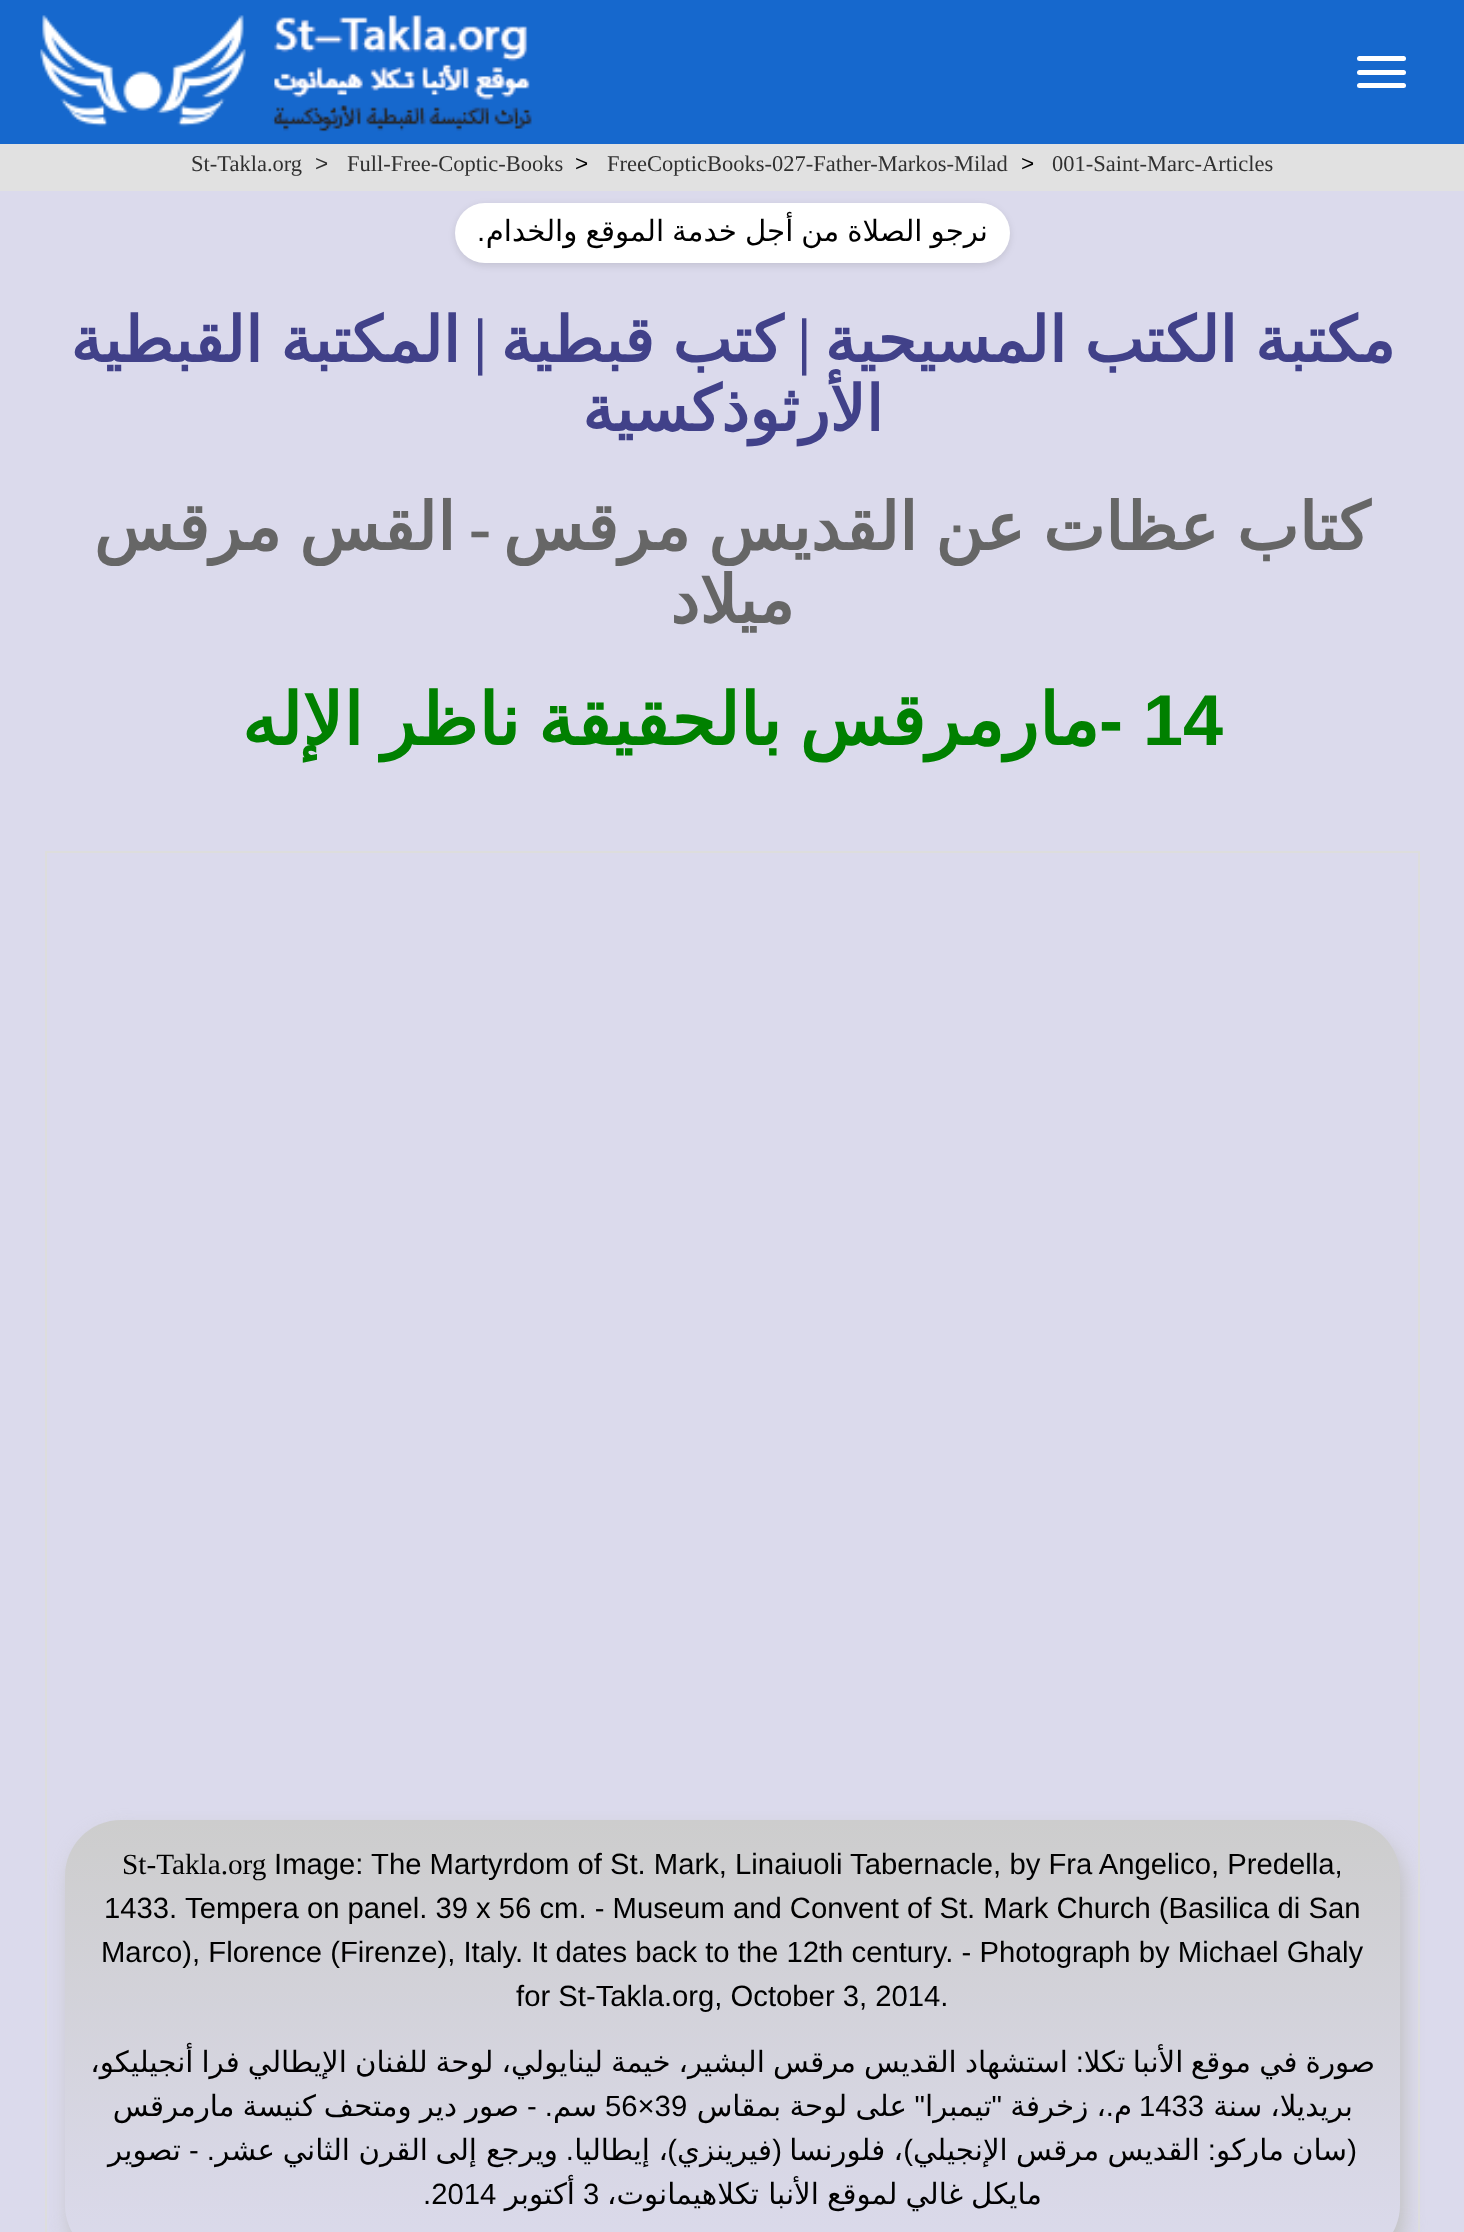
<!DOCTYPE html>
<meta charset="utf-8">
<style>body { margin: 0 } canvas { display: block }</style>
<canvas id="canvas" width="1464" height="2232"></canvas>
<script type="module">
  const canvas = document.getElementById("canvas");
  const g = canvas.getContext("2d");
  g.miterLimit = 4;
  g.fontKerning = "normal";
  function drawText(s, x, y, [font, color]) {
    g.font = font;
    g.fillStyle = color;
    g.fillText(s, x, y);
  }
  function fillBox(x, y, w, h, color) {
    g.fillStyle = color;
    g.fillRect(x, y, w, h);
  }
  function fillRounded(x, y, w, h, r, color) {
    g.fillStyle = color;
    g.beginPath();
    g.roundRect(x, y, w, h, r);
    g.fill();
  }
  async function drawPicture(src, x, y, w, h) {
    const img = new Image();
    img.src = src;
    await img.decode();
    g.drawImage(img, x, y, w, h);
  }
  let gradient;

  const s1 = ["22.5px Liberation Serif", "#303030"];
  const s2 = ["22.5px Liberation Sans", "#000000"];
  const s3 = ["22.5px Liberation Sans", "#303030"];
  const s4 = ["29.25px DejaVu Sans", "#000000"];
  const s5 = ["29.25px Liberation Sans", "#000000"];
  const s6 = ["bold 63px DejaVu Sans", "#414189"];
  const s7 = ["bold 63px Liberation Serif", "#414189"];
  const s8 = ["bold 66px DejaVu Sans", "#666666"];
  const s9 = ["bold 66px Liberation Serif", "#666666"];
  const s10 = ["bold 72px Liberation Sans", "#008000"];
  const s11 = ["bold 72px DejaVu Sans", "#008000"];
  const s12 = ["29.25px Liberation Serif", "#000000"];

  fillBox(0, 0, 1464, 2232, "#DBDAEC");
  fillBox(0, 0, 1464, 144, "#1668CD");
  fillRounded(1357, 56, 49, 5, 2.5, "#FFFFFF");
  fillRounded(1357, 70, 49, 5, 2.5, "#FFFFFF");
  fillRounded(1357, 83, 49, 5, 2.5, "#FFFFFF");
  await drawPicture("pic1.png", 40, 15, 492, 117);
  fillBox(0, 144, 1464, 47, "#E1E1E1");
  drawText("001-Saint-Marc-Articles", 1052, 171, s1);
  drawText(">", 1021, 171, s2);
  drawText("FreeCopticBooks-027-Father-Markos-Milad", 607, 171, s1);
  drawText(">", 575, 171, s2);
  drawText("Full-Free-Coptic-Books", 347, 171, s1);
  drawText(">", 315, 171, s3);
  drawText("St-Takla.org", 191, 171, s1);
  g.fillStyle = "rgba(0, 0, 0, 0.1)";
  g.filter = "blur(3.5px)";
  g.beginPath();
  g.roundRect(455, 205, 555, 61, 30.5);
  g.fill();
  g.filter = "none";
  fillRounded(455, 203, 555, 60, 30, "#FFFFFF");
  g.wordSpacing = "-1.25px";
  g.direction = "rtl";
  drawText("نرجو الصلاة من أجل خدمة الموقع والخدام", 988, 241, s4);
  g.wordSpacing = "0px";
  g.direction = "ltr";
  drawText(".", 477, 241, s5);
  g.wordSpacing = "-2px";
  g.direction = "rtl";
  drawText("مكتبة الكتب المسيحية", 1395, 362, s6);
  g.wordSpacing = "0px";
  drawText("|", 811, 362, s7);
  g.wordSpacing = "-2px";
  drawText("كتب قبطية", 783, 362, s6);
  g.wordSpacing = "0px";
  drawText("|", 487, 362, s7);
  g.wordSpacing = "-2px";
  drawText("المكتبة القبطية", 460, 362, s6);
  g.wordSpacing = "0px";
  drawText("الأرثوذكسية", 883, 431, s6);
  g.wordSpacing = "-3px";
  drawText("كتاب عظات عن القديس مرقس", 1370, 550, s8);
  g.wordSpacing = "0px";
  drawText("-", 491, 550, s9);
  g.wordSpacing = "-3px";
  drawText("القس مرقس", 455, 550, s8);
  g.wordSpacing = "0px";
  drawText("ميلاد", 794, 623, s8);
  g.direction = "ltr";
  drawText("- 14", 1099, 745, s10);
  g.wordSpacing = "-5px";
  g.direction = "rtl";
  drawText("مارمرقس بالحقيقة ناظر الإله", 1099, 745, s11);
  fillBox(45, 851, 1375, 2, "#DDDDDD");
  g.fillStyle = "#C0C0C0";
  g.filter = "blur(10px)";
  g.beginPath();
  g.roundRect(70, 1832, 1334, 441, 56);
  g.fill();
  g.filter = "none";
  fillBox(1418, 851, 2, 1381, "#DDDDDD");
  fillBox(45, 851, 2, 1381, "#DDDDDD");
  gradient = g.createLinearGradient(732, 1820, 732, 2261);
  gradient.addColorStop(0, "#CDCDCD");
  gradient.addColorStop(1, "#DBDAEC");
  g.fillStyle = gradient;
  g.beginPath();
  g.roundRect(65, 1820, 1335, 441, 56);
  g.fill();
  g.wordSpacing = "0px";
  g.direction = "ltr";
  drawText("Image: The Martyrdom of St. Mark, Linaiuoli Tabernacle, by Fra Angelico, Predella,", 274, 1874, s5);
  drawText("St-Takla.org", 122, 1874, s12);
  drawText("Tempera on panel. 39 x 56 cm. - Museum and Convent of St. Mark Church (Basilica di San", 185, 1918, s5);
  drawText("1433.", 104, 1918, s5);
  drawText("Marco), Florence (Firenze), Italy. It dates back to the 12th century. - Photograph by Michael Ghaly", 101, 1962, s5);
  drawText("for St-Takla.org, October 3, 2014.", 516, 2006, s5);
  g.wordSpacing = "-1.25px";
  g.direction = "rtl";
  drawText("صورة في", 1375, 2072, s4);
  g.wordSpacing = "-2px";
  drawText("موقع الأنبا تكلا", 1251, 2072, s4);
  g.wordSpacing = "0px";
  drawText(":", 1084, 2072, s5);
  g.wordSpacing = "-1px";
  drawText("استشهاد القديس", 1068, 2072, s4);
  g.wordSpacing = "-1.25px";
  drawText("مرقس البشير، خيمة لينايولي، لوحة للفنان الإيطالي فرا أنجيليكو،", 856, 2072, s4);
  drawText("بريديلا، سنة", 1353, 2116, s4);
  g.wordSpacing = "0px";
  g.direction = "ltr";
  drawText("1433", 1139, 2116, s5);
  g.direction = "rtl";
  drawText("م", 1132, 2116, s4);
  drawText(".", 1114, 2116, s5);
  g.wordSpacing = "-1px";
  drawText("، زخرفة", 1106, 2116, s4);
  g.wordSpacing = "0px";
  drawText("\"", 1002, 2116, s5);
  drawText("تيمبرا", 992, 2116, s4);
  drawText("\"", 925, 2116, s5);
  g.wordSpacing = "-1px";
  drawText("على لوحة بمقاس", 907, 2116, s4);
  g.wordSpacing = "0px";
  g.direction = "ltr";
  drawText("56×39", 605, 2116, s5);
  g.direction = "rtl";
  drawText("سم", 597, 2116, s4);
  drawText(". -", 553, 2116, s5);
  drawText("صور", 519, 2116, s4);
  g.wordSpacing = "-1.25px";
  drawText("دير ومتحف كنيسة مارمرقس", 457, 2116, s4);
  g.wordSpacing = "0px";
  drawText("(", 1357, 2160, s5);
  g.wordSpacing = "-1px";
  drawText("سان ماركو", 1347, 2160, s4);
  g.wordSpacing = "0px";
  drawText(":", 1216, 2160, s5);
  g.wordSpacing = "-1px";
  drawText("القديس مرقس الإنجيلي", 1200, 2160, s4);
  g.wordSpacing = "0px";
  drawText(")", 913, 2160, s5);
  g.wordSpacing = "-1px";
  drawText("، فلورنسا", 903, 2160, s4);
  g.wordSpacing = "0px";
  drawText("(", 782, 2160, s5);
  drawText("فيرينزي", 772, 2160, s4);
  drawText(")", 677, 2160, s5);
  drawText("،", 668, 2160, s4);
  drawText("إيطاليا", 650, 2160, s4);
  drawText(".", 574, 2160, s5);
  drawText("ويرجع", 558, 2160, s4);
  drawText("إلى", 477, 2160, s4);
  drawText("القرن", 428, 2160, s4);
  drawText("الثاني", 350, 2160, s4);
  drawText(". -", 215, 2160, s5);
  drawText("عشر", 275, 2160, s4);
  drawText("تصوير", 181, 2160, s4);
  g.wordSpacing = "-1.25px";
  drawText("مايكل غالي لموقع الأنبا", 1042, 2204, s4);
  g.wordSpacing = "0px";
  drawText("تكلاهيمانوت،", 759, 2204, s4);
  g.direction = "ltr";
  drawText("3", 583, 2204, s5);
  g.direction = "rtl";
  drawText("أكتوبر", 575, 2204, s4);
  g.direction = "ltr";
  drawText(".2014", 423, 2204, s5);
</script>
